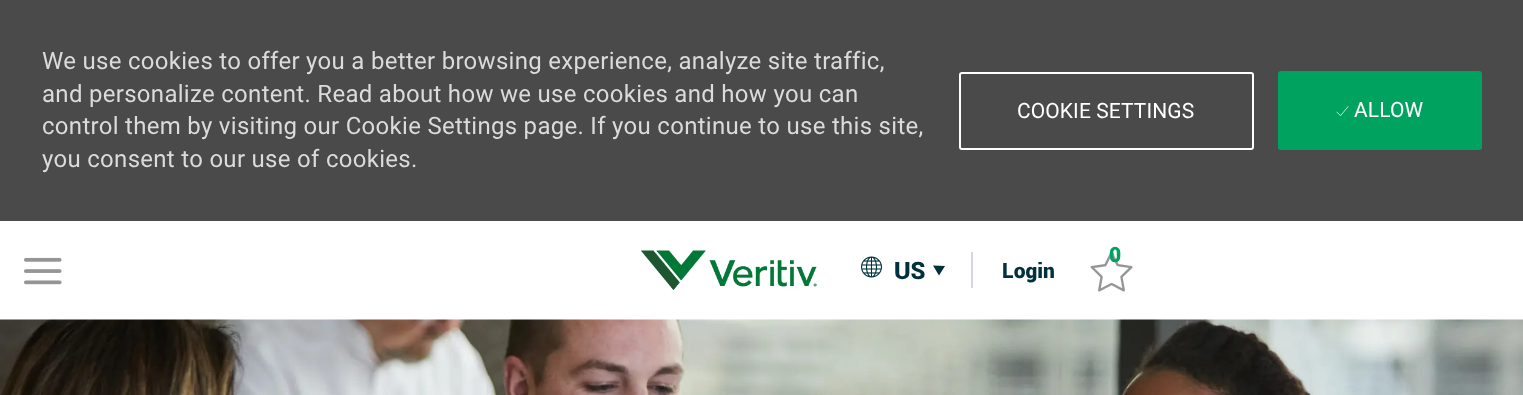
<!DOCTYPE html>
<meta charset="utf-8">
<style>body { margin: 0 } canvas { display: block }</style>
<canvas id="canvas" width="1523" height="395"></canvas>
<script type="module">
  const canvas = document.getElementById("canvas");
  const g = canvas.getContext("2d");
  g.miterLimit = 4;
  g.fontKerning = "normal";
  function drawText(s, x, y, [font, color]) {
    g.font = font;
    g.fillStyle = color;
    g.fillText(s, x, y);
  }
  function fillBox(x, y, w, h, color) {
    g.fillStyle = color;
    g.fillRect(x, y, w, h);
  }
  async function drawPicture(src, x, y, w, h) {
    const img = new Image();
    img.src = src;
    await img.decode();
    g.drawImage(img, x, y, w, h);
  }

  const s1 = ["24px Roboto", "#DBDBDB"];
  const s2 = ["21px Roboto", "#FFFFFF"];
  const s3 = ["900 24px Roboto", "#00313C"];
  const s4 = ["900 21px Roboto", "#00313C"];
  const s5 = ["900 21px Roboto", "#00A25F"];

  fillBox(0, 0, 1523, 395, "#FFFFFF");
  fillBox(0, 0, 1523, 221, "#4A4A4A");
  g.letterSpacing = "0.3px";
  drawText("We use cookies to offer you a better browsing experience, analyze site traffic,", 42, 69, s1);
  drawText("and personalize content. Read about how we use cookies and how you can", 42, 102, s1);
  drawText("control them by visiting our Cookie Settings page. If you continue to use this site,", 42, 134, s1);
  drawText("you consent to our use of cookies.", 42, 167, s1);
  g.beginPath();
  g.roundRect(960, 73, 293, 76, 2);
  g.strokeStyle = "#FFFFFF";
  g.lineWidth = 2;
  g.stroke();
  g.letterSpacing = "0.1px";
  drawText("COOKIE SETTINGS", 1017, 118, s2);
  g.fillStyle = "#00A25F";
  g.beginPath();
  g.roundRect(1279, 72, 202, 77, 2);
  g.fill();
  g.strokeStyle = "#00A25F";
  g.stroke();
  await drawPicture("pic1.png", 1336, 106, 13, 10);
  drawText("ALLOW", 1354, 117, s2);
  await drawPicture("pic2.png", 24, 257, 38, 28);
  await drawPicture("pic3.png", 641, 250, 176, 40);
  await drawPicture("pic4.png", 861, 256, 21, 22);
  g.letterSpacing = "0px";
  drawText("US", 894, 279, s3);
  g.beginPath();
  g.moveTo(939, 275.5);
  g.lineTo(933, 265.5);
  g.lineTo(945, 266);
  g.closePath();
  g.fill();
  fillBox(971, 252, 2, 36, "#D5D8DC");
  drawText("Login", 1002, 278, s4);
  await drawPicture("pic5.png", 1090, 251, 43, 41);
  drawText("0", 1109, 262, s5);
  await drawPicture("pic6.png", 0, 319, 1523, 76);
</script>
